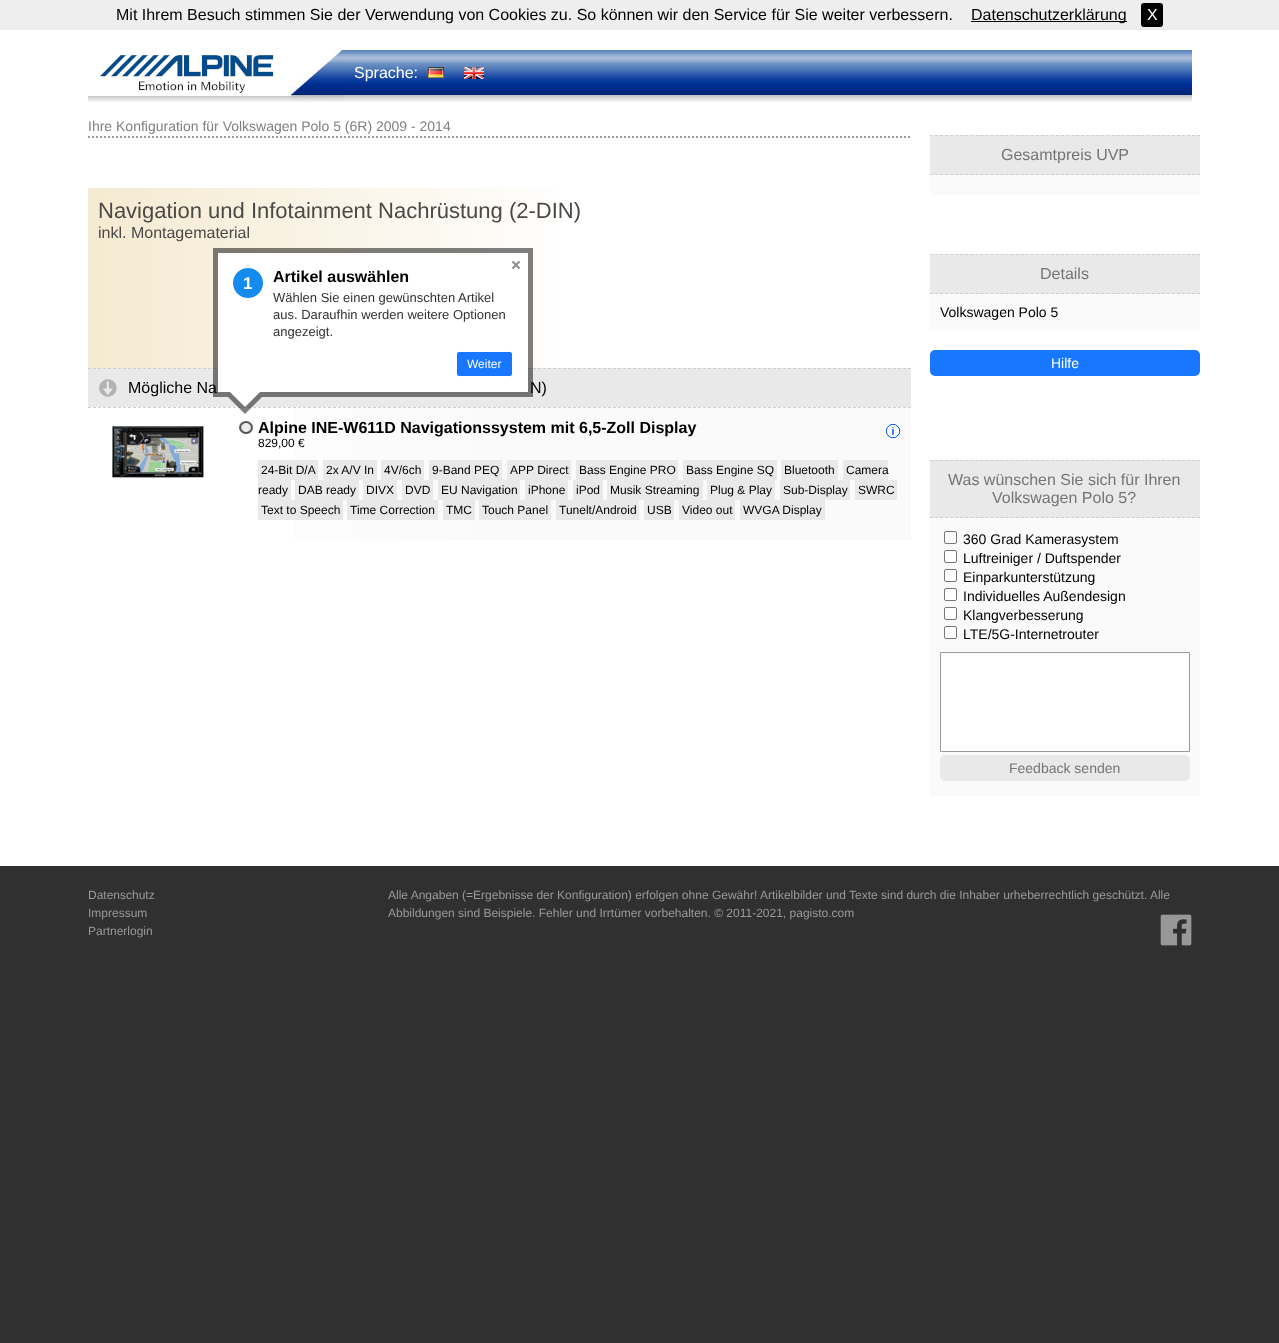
<!DOCTYPE html>
<meta charset="utf-8">
<style>body { margin: 0 } canvas { display: block }</style>
<canvas id="canvas" width="1279" height="1343"></canvas>
<script type="module">
  const canvas = document.getElementById("canvas");
  const g = canvas.getContext("2d");
  g.miterLimit = 4;
  g.fontKerning = "normal";
  function drawText(s, x, y, [font, color]) {
    g.font = font;
    g.fillStyle = color;
    g.fillText(s, x, y);
  }
  function fillBox(x, y, w, h, color) {
    g.fillStyle = color;
    g.fillRect(x, y, w, h);
  }
  function fillRounded(x, y, w, h, r, color) {
    g.fillStyle = color;
    g.beginPath();
    g.roundRect(x, y, w, h, r);
    g.fill();
  }
  async function drawPicture(src, x, y, w, h) {
    const img = new Image();
    img.src = src;
    await img.decode();
    g.drawImage(img, x, y, w, h);
  }
  let gradient;

  const s1 = ["16px Liberation Sans", "#000000"];
  const s2 = ["16px Liberation Sans", "#FFFFFF"];
  const s3 = ["14px Liberation Sans", "#808080"];
  const s4 = ["22px Liberation Sans", "#4B4946"];
  const s5 = ["16px Liberation Sans", "#4B4946"];
  const s6 = ["bold 16px Liberation Sans", "#000000"];
  const s7 = ["12px Liberation Sans", "#000000"];
  const s8 = ["16px Liberation Sans", "#757575"];
  const s9 = ["14px Liberation Sans", "#000000"];
  const s10 = ["14px Liberation Sans", "#FFFFFF"];
  const s11 = ["14px Liberation Sans", "#757575"];
  const s12 = ["bold 17px Liberation Sans", "#FFFFFF"];
  const s13 = ["13px Liberation Sans", "#333333"];
  const s14 = ["12px Liberation Sans", "#FFFFFF"];
  const s15 = ["12px Liberation Sans", "#999999"];

  fillBox(0, 0, 1279, 1343, "#303030");
  fillBox(0, 0, 1279, 30, "#EEEEEE");
  drawText("Mit Ihrem Besuch stimmen Sie der Verwendung von Cookies zu. So können wir den Service für Sie weiter verbessern.", 116, 20, s1);
  fillBox(971, 21, 156, 1, "#000000");
  drawText("Datenschutzerklärung", 971, 20, s1);
  fillRounded(1141, 3, 22, 24, 3, "#000000");
  drawText("X", 1147, 20, s2);
  fillBox(0, 30, 1279, 836, "#FFFFFF");
  await drawPicture("pic1.png", 88, 50, 1104, 52);
  await drawPicture("pic2.png", 88, 96, 203, 4);
  fillBox(88, 50, 203, 46, "#FFFFFF");
  await drawPicture("pic3.png", 99, 55, 175, 38);
  await drawPicture("pic4.png", 291, 50, 53, 52);
  drawText("Sprache:", 354, 78, s2);
  await drawPicture("pic5.png", 428, 67, 16, 11);
  await drawPicture("pic6.png", 464, 67, 20, 12);
  g.beginPath();
  g.moveTo(88, 137);
  g.lineTo(911, 137);
  g.strokeStyle = "#9A9A9A";
  g.lineWidth = 2;
  g.setLineDash([2, 2]);
  g.stroke();
  drawText("Ihre Konfiguration für Volkswagen Polo 5 (6R) 2009 - 2014", 88, 131, s3);
  gradient = g.createLinearGradient(88, 278, 911, 278);
  gradient.addColorStop(0, "#F5EAD1");
  gradient.addColorStop(0.6, "#FFFFFF");
  g.fillStyle = gradient;
  g.fillRect(88, 188, 467, 180);
  drawText("Navigation und Infotainment Nachrüstung (2-DIN)", 98, 218, s4);
  drawText("inkl. Montagematerial", 98, 238, s5);
  fillBox(88, 368, 823, 39, "#E9E9E9");
  await drawPicture("pic7.png", 99, 379, 18, 18);
  g.beginPath();
  g.moveTo(88, 368.5);
  g.lineTo(911, 368.5);
  g.strokeStyle = "#D0D0D0";
  g.lineWidth = 1;
  g.setLineDash([3, 2]);
  g.stroke();
  drawText("Mögliche Na", 128, 393, s1);
  drawText("N)", 530, 393, s1);
  gradient = g.createLinearGradient(88, 474, 911, 474);
  gradient.addColorStop(0, "#FFFFFF");
  gradient.addColorStop(0.5, "#FAFAFA");
  g.fillStyle = gradient;
  g.fillRect(294, 407, 617, 133);
  g.beginPath();
  g.moveTo(88, 407.5);
  g.lineTo(911, 407.5);
  g.stroke();
  await drawPicture("pic8.png", 112, 426, 92, 52);
  await drawPicture("pic9.png", 239, 420, 15, 14);
  drawText("Alpine INE-W611D Navigationssystem mit 6,5-Zoll Display", 258, 433, s6);
  await drawPicture("pic10.png", 886, 424, 14, 14);
  drawText("829,00 €", 258, 447, s7);
  fillBox(258, 460, 60, 20, "#E9E9E9");
  drawText("24-Bit D/A", 261, 474, s7);
  fillBox(323, 460, 54, 20, "#E9E9E9");
  drawText("2x A/V In", 326, 474, s7);
  fillBox(381, 460, 43, 20, "#E9E9E9");
  drawText("4V/6ch", 384, 474, s7);
  fillBox(429, 460, 73, 20, "#E9E9E9");
  drawText("9-Band PEQ", 432, 474, s7);
  fillBox(507, 460, 64, 20, "#E9E9E9");
  drawText("APP Direct", 510, 474, s7);
  fillBox(576, 460, 102, 20, "#E9E9E9");
  drawText("Bass Engine PRO", 579, 474, s7);
  fillBox(683, 460, 94, 20, "#E9E9E9");
  drawText("Bass Engine SQ", 686, 474, s7);
  fillBox(781, 460, 57, 20, "#E9E9E9");
  drawText("Bluetooth", 784, 474, s7);
  fillBox(843, 460, 45, 20, "#E9E9E9");
  drawText("Camera", 846, 474, s7);
  fillBox(258, 480, 33, 20, "#E9E9E9");
  drawText("ready", 258, 494, s7);
  fillBox(295, 480, 64, 20, "#E9E9E9");
  drawText("DAB ready", 298, 494, s7);
  fillBox(363, 480, 34, 20, "#E9E9E9");
  drawText("DIVX", 366, 494, s7);
  fillBox(402, 480, 31, 20, "#E9E9E9");
  drawText("DVD", 405, 494, s7);
  fillBox(438, 480, 82, 20, "#E9E9E9");
  drawText("EU Navigation", 441, 494, s7);
  fillBox(525, 480, 43, 20, "#E9E9E9");
  drawText("iPhone", 528, 494, s7);
  fillBox(573, 480, 30, 20, "#E9E9E9");
  drawText("iPod", 576, 494, s7);
  fillBox(607, 480, 96, 20, "#E9E9E9");
  drawText("Musik Streaming", 610, 494, s7);
  fillBox(707, 480, 68, 20, "#E9E9E9");
  drawText("Plug & Play", 710, 494, s7);
  fillBox(780, 480, 70, 20, "#E9E9E9");
  drawText("Sub-Display", 783, 494, s7);
  fillBox(855, 480, 42, 20, "#E9E9E9");
  drawText("SWRC", 858, 494, s7);
  fillBox(258, 500, 85, 20, "#E9E9E9");
  drawText("Text to Speech", 261, 514, s7);
  fillBox(347, 500, 91, 20, "#E9E9E9");
  drawText("Time Correction", 350, 514, s7);
  fillBox(443, 500, 32, 20, "#E9E9E9");
  drawText("TMC", 446, 514, s7);
  fillBox(479, 500, 72, 20, "#E9E9E9");
  drawText("Touch Panel", 482, 514, s7);
  fillBox(556, 500, 83, 20, "#E9E9E9");
  drawText("Tunelt/Android", 559, 514, s7);
  fillBox(644, 500, 30, 20, "#E9E9E9");
  drawText("USB", 647, 514, s7);
  fillBox(679, 500, 56, 20, "#E9E9E9");
  drawText("Video out", 682, 514, s7);
  fillBox(740, 500, 85, 20, "#E9E9E9");
  drawText("WVGA Display", 743, 514, s7);
  fillBox(930, 135, 270, 40, "#E9E9E9");
  g.beginPath();
  g.moveTo(930, 135.5);
  g.lineTo(1200, 135.5);
  g.setLineDash([3, 2.04]);
  g.stroke();
  g.beginPath();
  g.moveTo(930, 174.5);
  g.lineTo(1200, 174.5);
  g.stroke();
  drawText("Gesamtpreis UVP", 1001, 160, s8);
  fillBox(930, 175, 270, 20, "#FAFAFA");
  fillBox(930, 254, 270, 40, "#E9E9E9");
  g.beginPath();
  g.moveTo(930, 254.5);
  g.lineTo(1200, 254.5);
  g.stroke();
  g.beginPath();
  g.moveTo(930, 293.5);
  g.lineTo(1200, 293.5);
  g.stroke();
  drawText("Details", 1040, 279, s8);
  fillBox(930, 294, 270, 36, "#FAFAFA");
  drawText("Volkswagen Polo 5", 940, 317, s9);
  fillRounded(930, 350, 270, 26, 5, "#1778FF");
  drawText("Hilfe", 1051, 368, s10);
  fillBox(930, 460, 270, 58, "#E9E9E9");
  g.beginPath();
  g.moveTo(930, 460.5);
  g.lineTo(1200, 460.5);
  g.stroke();
  g.beginPath();
  g.moveTo(930, 517.5);
  g.lineTo(1200, 517.5);
  g.stroke();
  drawText("Was wünschen Sie sich für Ihren", 948, 485, s8);
  drawText("Volkswagen Polo 5?", 992, 503, s8);
  fillBox(930, 518, 270, 278, "#FAFAFA");
  g.fillStyle = "#FFFFFF";
  g.beginPath();
  g.roundRect(944.5, 531.5, 12, 12, 1.5);
  g.fill();
  g.strokeStyle = "#767676";
  g.setLineDash([]);
  g.stroke();
  drawText("360 Grad Kamerasystem", 963, 544, s9);
  g.fillStyle = "#FFFFFF";
  g.beginPath();
  g.roundRect(944.5, 550.5, 12, 12, 1.5);
  g.fill();
  g.stroke();
  drawText("Luftreiniger / Duftspender", 963, 563, s9);
  g.fillStyle = "#FFFFFF";
  g.beginPath();
  g.roundRect(944.5, 569.5, 12, 12, 1.5);
  g.fill();
  g.stroke();
  drawText("Einparkunterstützung", 963, 582, s9);
  g.fillStyle = "#FFFFFF";
  g.beginPath();
  g.roundRect(944.5, 588.5, 12, 12, 1.5);
  g.fill();
  g.stroke();
  drawText("Individuelles Außendesign", 963, 601, s9);
  g.fillStyle = "#FFFFFF";
  g.beginPath();
  g.roundRect(944.5, 607.5, 12, 12, 1.5);
  g.fill();
  g.stroke();
  drawText("Klangverbesserung", 963, 620, s9);
  g.fillStyle = "#FFFFFF";
  g.beginPath();
  g.roundRect(944.5, 626.5, 12, 12, 1.5);
  g.fill();
  g.stroke();
  drawText("LTE/5G-Internetrouter", 963, 639, s9);
  g.fillStyle = "#FFFFFF";
  g.beginPath();
  g.rect(940.5, 652.5, 249, 99);
  g.fill();
  g.strokeStyle = "#999999";
  g.stroke();
  fillRounded(940, 755, 250, 26, 5, "#E9E9E9");
  drawText("Feedback senden", 1009, 773, s11);
  fillBox(218, 253, 310, 139, "#FFFFFF");
  g.strokeStyle = "rgba(0, 0, 0, 0.5)";
  g.lineWidth = 5;
  g.strokeRect(215.5, 250.5, 315, 144);
  await drawPicture("pic11.png", 511, 260, 10, 10);
  await drawPicture("pic12.png", 233, 268, 30, 30);
  drawText("1", 243, 289, s12);
  drawText("Artikel auswählen", 273, 282, s6);
  drawText("Wählen Sie einen gewünschten Artikel", 273, 302, s13);
  drawText("aus. Daraufhin werden weitere Optionen", 273, 319, s13);
  drawText("angezeigt.", 273, 336, s13);
  g.fillStyle = "#1778FF";
  g.beginPath();
  g.roundRect(456.5, 351.5, 56, 25, 2.5);
  g.fill();
  g.strokeStyle = "#FFFFFF";
  g.lineWidth = 1;
  g.stroke();
  drawText("Weiter", 467, 368, s14);
  g.fillStyle = "rgba(0, 0, 0, 0.5)";
  g.beginPath();
  g.moveTo(228, 397);
  g.lineTo(262, 397);
  g.lineTo(245, 414);
  g.closePath();
  g.fill();
  g.fillStyle = "#FFFFFF";
  g.beginPath();
  g.moveTo(228, 390);
  g.lineTo(262, 390);
  g.lineTo(245, 407);
  g.closePath();
  g.fill();
  drawText("Datenschutz", 88, 899, s15);
  drawText("Impressum", 88, 917, s15);
  drawText("Partnerlogin", 88, 935, s15);
  drawText("Alle Angaben (=Ergebnisse der Konfiguration) erfolgen ohne Gewähr! Artikelbilder und Texte sind durch die Inhaber urheberrechtlich geschützt. Alle", 388, 899, s15);
  drawText("Abbildungen sind Beispiele. Fehler und Irrtümer vorbehalten. © 2011-2021, pagisto.com", 388, 917, s15);
  await drawPicture("pic13.png", 1160, 914, 32, 32);
</script>
